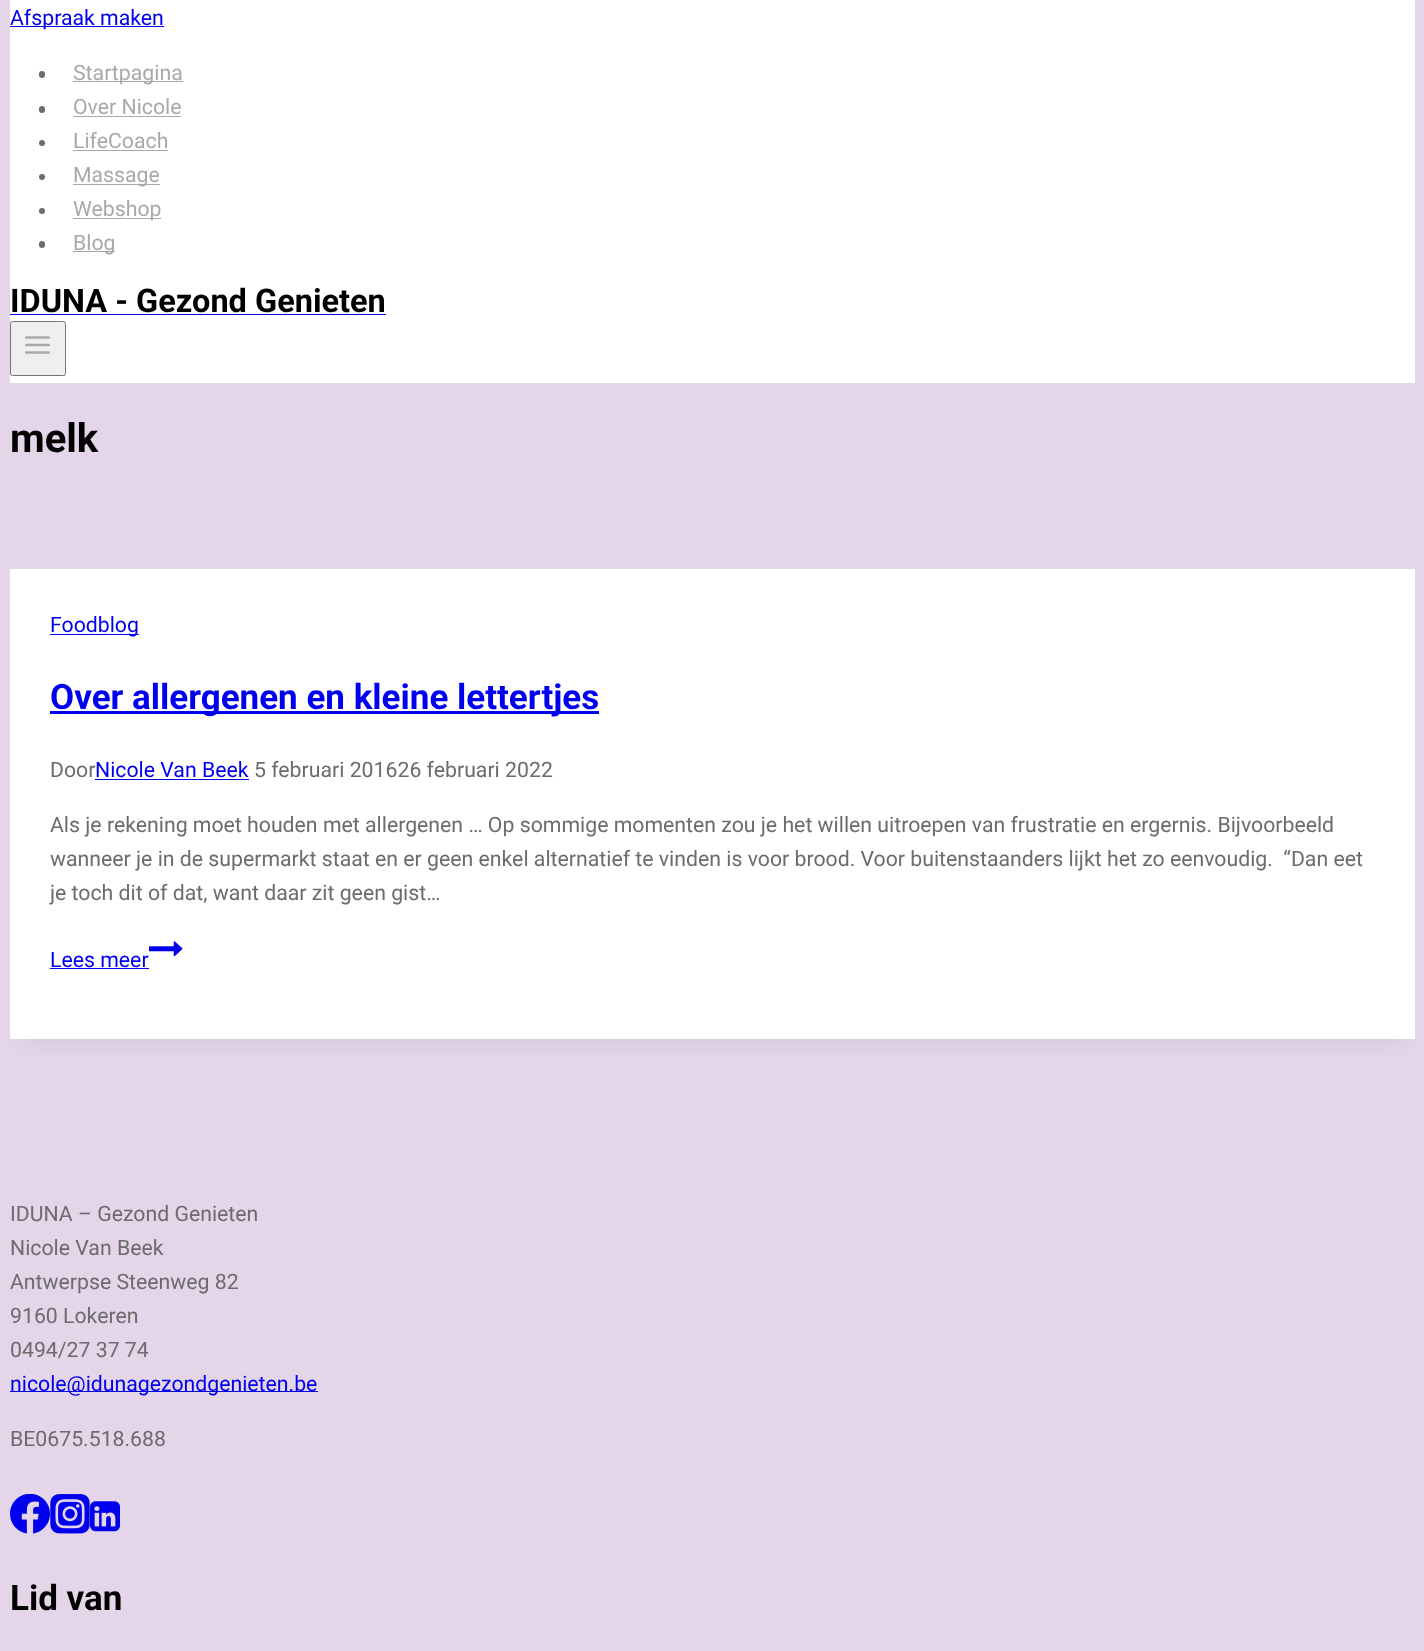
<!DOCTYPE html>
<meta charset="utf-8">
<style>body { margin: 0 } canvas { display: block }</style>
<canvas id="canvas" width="1424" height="1651"></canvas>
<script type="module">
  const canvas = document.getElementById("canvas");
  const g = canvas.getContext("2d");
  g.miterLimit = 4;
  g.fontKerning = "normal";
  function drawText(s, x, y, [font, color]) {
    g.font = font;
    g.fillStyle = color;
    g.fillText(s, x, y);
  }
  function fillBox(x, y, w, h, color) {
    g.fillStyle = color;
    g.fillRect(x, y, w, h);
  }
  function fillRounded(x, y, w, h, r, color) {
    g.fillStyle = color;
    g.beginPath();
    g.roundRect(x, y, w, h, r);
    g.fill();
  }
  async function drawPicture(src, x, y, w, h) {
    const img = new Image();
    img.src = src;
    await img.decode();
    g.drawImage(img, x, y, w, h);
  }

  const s1 = ["21.25px Roboto", "#0000EE"];
  const s2 = ["21.25px Roboto", "#A9A8AA"];
  const s3 = ["bold 32.5px Roboto", "#000000"];
  const s4 = ["bold 40px Roboto", "#000000"];
  const s5 = ["bold 35px Roboto", "#0000EE"];
  const s6 = ["21.25px Roboto", "#6C6B6D"];
  const s7 = ["bold 35px Roboto", "#000000"];

  fillBox(0, 0, 1424, 1651, "#E4D5E9");
  fillBox(10, 0, 1405, 383, "#FFFFFF");
  fillBox(10, 26, 154, 1, "#0000EE");
  drawText("Afspraak maken", 10, 25, s1);
  fillRounded(39, 71, 6, 7, 3, "#6C6B6D");
  fillBox(73, 81, 110, 1, "#A9A8AA");
  drawText("Startpagina", 73, 80, s2);
  fillRounded(39, 106, 6, 7, 3, "#6C6B6D");
  drawText("Over Nicole", 73, 114, s2);
  fillBox(73, 116, 108, 1, "#A9A8AA");
  g.fillStyle = "#6C6B6D";
  g.beginPath();
  g.arc(42, 143, 3, 0, Math.PI * 2);
  g.fill();
  drawText("LifeCoach", 73, 148, s2);
  fillBox(73, 150, 95, 1, "#A9A8AA");
  g.fillStyle = "#6C6B6D";
  g.beginPath();
  g.arc(42, 177, 3, 0, Math.PI * 2);
  g.fill();
  fillBox(73, 184, 87, 1, "#A9A8AA");
  drawText("Massage", 73, 182, s2);
  g.fillStyle = "#6C6B6D";
  g.beginPath();
  g.arc(42, 211, 3, 0, Math.PI * 2);
  g.fill();
  fillBox(73, 218, 88, 1, "#A9A8AA");
  drawText("Webshop", 73, 216, s2);
  fillRounded(39, 241, 6, 7, 3, "#6C6B6D");
  fillBox(73, 251, 42, 1, "#A9A8AA");
  drawText("Blog", 73, 250, s2);
  drawText("IDUNA - Gezond Genieten", 10, 312, s3);
  fillBox(10, 314, 376, 1, "#0000EE");
  g.fillStyle = "#EFEFEF";
  g.beginPath();
  g.roundRect(10.5, 321.5, 55, 54, 2);
  g.fill();
  g.strokeStyle = "#767676";
  g.stroke();
  await drawPicture("pic1.png", 25, 336, 25, 18);
  drawText("melk", 10, 452, s4);
  g.fillStyle = "rgba(0, 0, 0, 0.05)";
  g.filter = "blur(9.5px)";
  g.beginPath();
  g.rect(23, 600, 1380, 445);
  g.fill();
  g.filter = "none";
  fillBox(10, 569, 1405, 470, "#FFFFFF");
  fillBox(50, 634, 89, 1, "#0000EE");
  drawText("Foodblog", 50, 632, s1);
  fillBox(50, 711, 549, 3, "#0000EE");
  drawText("Over allergenen en kleine lettertjes", 50, 709, s5);
  drawText("Door", 50, 777, s6);
  fillBox(95, 779, 154, 1, "#0000EE");
  drawText("Nicole Van Beek", 95, 777, s1);
  drawText("5 februari 201626 februari 2022", 254, 777, s6);
  drawText("Als je rekening moet houden met allergenen … Op sommige momenten zou je het willen uitroepen van frustratie en ergernis. Bijvoorbeeld", 50, 832, s6);
  drawText("wanneer je in de supermarkt staat en er geen enkel alternatief te vinden is voor brood. Voor buitenstaanders lijkt het zo eenvoudig.  “Dan eet", 50, 866, s6);
  drawText("je toch dit of dat, want daar zit geen gist…", 50, 900, s6);
  await drawPicture("pic2.png", 149, 941, 34, 16);
  drawText("Lees meer", 50, 967, s1);
  fillBox(50, 968, 99, 1, "#0000EE");
  drawText("IDUNA – Gezond Genieten", 10, 1221, s6);
  drawText("Nicole Van Beek", 10, 1255, s6);
  drawText("Antwerpse Steenweg 82", 10, 1289, s6);
  drawText("9160 Lokeren", 10, 1323, s6);
  drawText("0494/27 37 74", 10, 1357, s6);
  fillBox(10, 1391, 308, 1, "#0000EE");
  drawText("nicole@idunagezondgenieten.be", 10, 1391, s1);
  drawText("BE0675.518.688", 10, 1446, s6);
  await drawPicture("pic3.png", 10, 1494, 40, 40);
  await drawPicture("pic4.png", 50, 1494, 40, 40);
  await drawPicture("pic5.png", 90, 1501, 30, 31);
  drawText("Lid van", 10, 1610, s7);
</script>
